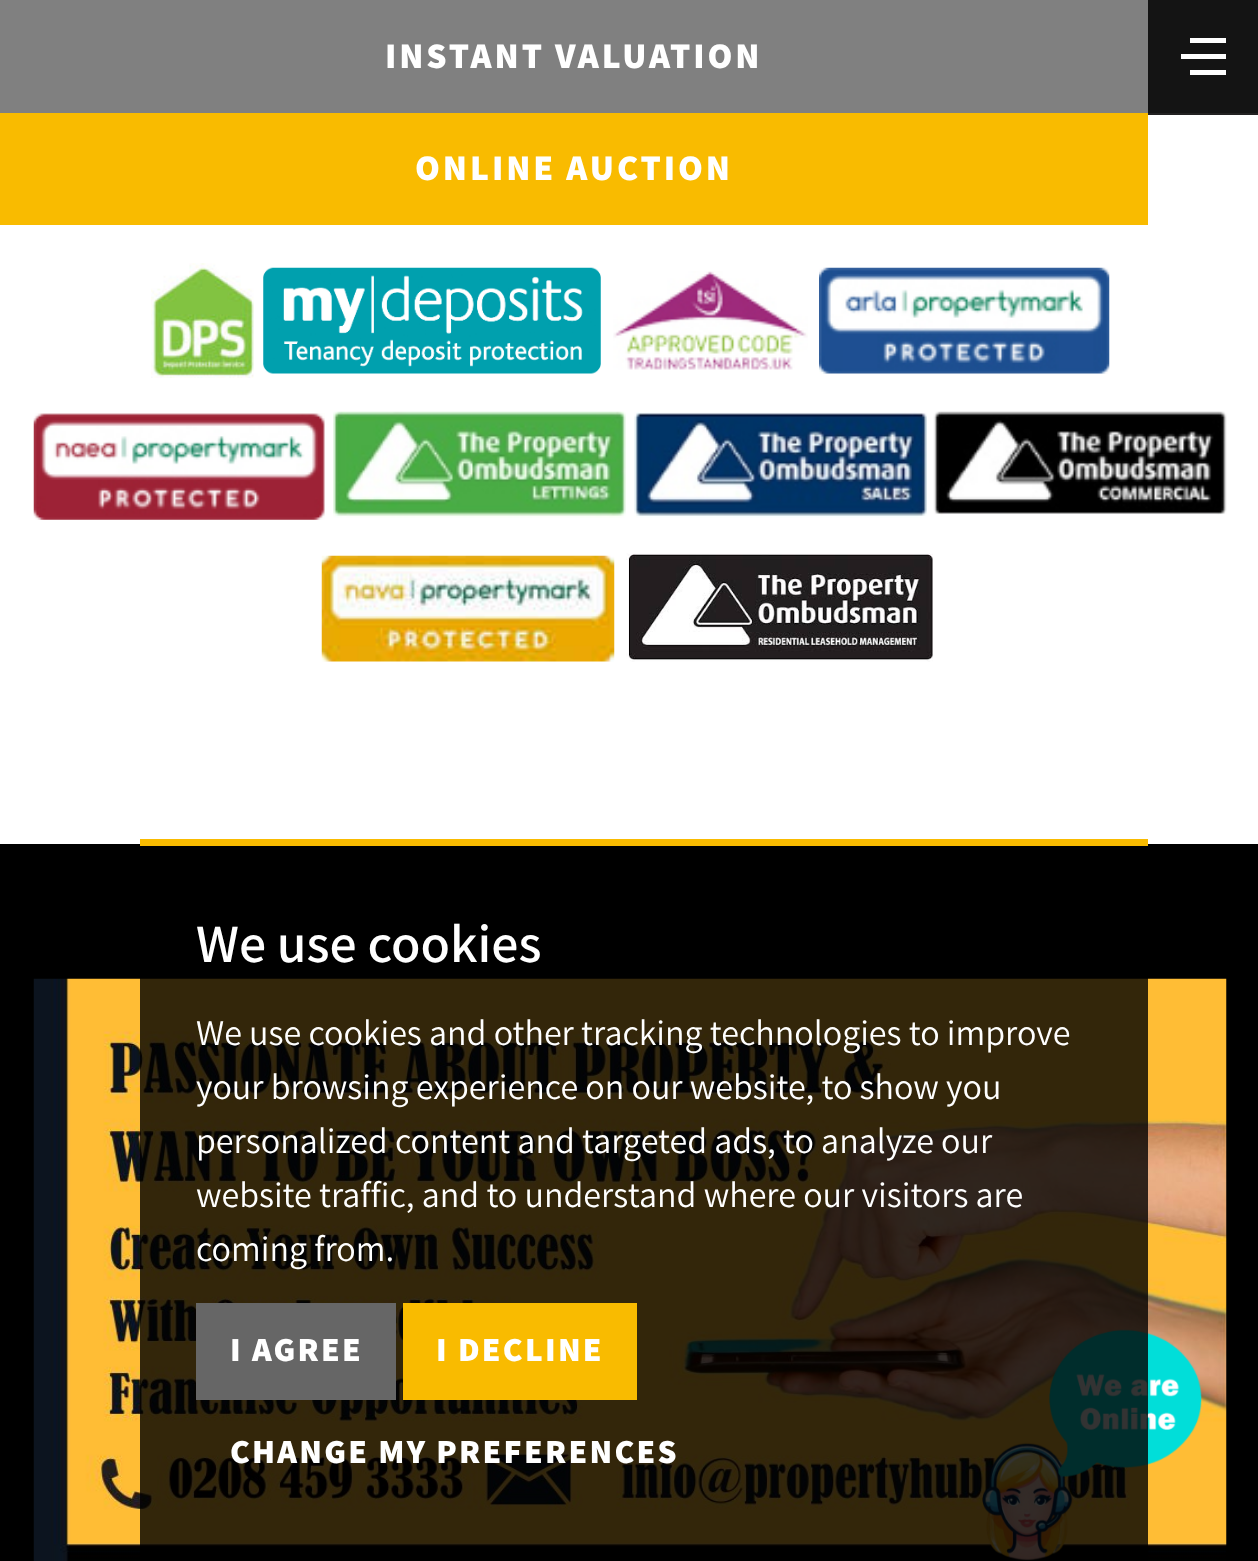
<!DOCTYPE html>
<meta charset="utf-8">
<style>body { margin: 0 } canvas { display: block }</style>
<canvas id="canvas" width="1258" height="1561"></canvas>
<script type="module">
  const canvas = document.getElementById("canvas");
  const g = canvas.getContext("2d");
  g.miterLimit = 4;
  g.fontKerning = "normal";
  function drawText(s, x, y, [font, color]) {
    g.font = font;
    g.fillStyle = color;
    g.fillText(s, x, y);
  }
  function fillBox(x, y, w, h, color) {
    g.fillStyle = color;
    g.fillRect(x, y, w, h);
  }
  async function drawPicture(src, x, y, w, h) {
    const img = new Image();
    img.src = src;
    await img.decode();
    g.drawImage(img, x, y, w, h);
  }

  const s1 = ["800 36px Assistant", "#FFFFFF"];
  const s2 = ["600 54px Assistant", "#FFFFFF"];
  const s3 = ["36px Assistant", "#FFFFFF"];
  const s4 = ["800 33.75px Assistant", "#FFFFFF"];

  fillBox(0, 0, 1258, 1561, "#FFFFFF");
  fillBox(0, 0, 1148, 113, "#808080");
  g.letterSpacing = "2.9px";
  drawText("INSTANT VALUATION", 385, 68, s1);
  fillBox(0, 113, 1148, 112, "#F9BB00");
  drawText("ONLINE AUCTION", 415, 180, s1);
  fillBox(1148, 0, 110, 113, "#141414");
  fillBox(1190, 38, 36, 5, "#FFFFFF");
  fillBox(1181, 54, 45, 5, "#FFFFFF");
  fillBox(1190, 70, 36, 5, "#FFFFFF");
  fillBox(1148, 113, 110, 2, "#222121");
  await drawPicture("pic1.png", 151, 263, 103, 115);
  await drawPicture("pic2.png", 263, 267, 338, 107);
  await drawPicture("pic3.png", 613, 271, 195, 99);
  await drawPicture("pic4.png", 819, 267, 291, 107);
  await drawPicture("pic5.png", 33, 413, 292, 107);
  await drawPicture("pic6.png", 333, 411, 293, 107);
  await drawPicture("pic7.png", 634, 412, 293, 106);
  await drawPicture("pic8.png", 933, 411, 294, 104);
  await drawPicture("pic9.png", 321, 555, 294, 107);
  await drawPicture("pic10.png", 626, 553, 307, 109);
  fillBox(0, 844, 1258, 717, "#000000");
  await drawPicture("pic11.png", 33, 978, 1194, 583);
  await drawPicture("pic12.png", 982, 1329, 220, 232);
  fillBox(140, 978, 1008, 583, "rgba(0, 0, 0, 0.8)");
  fillBox(140, 839, 1008, 7, "#F9BB00");
  g.letterSpacing = "0px";
  drawText("We use cookies", 196, 962, s2);
  drawText("We use cookies and other tracking technologies to improve", 196, 1045, s3);
  drawText("your browsing experience on our website, to show you", 196, 1099, s3);
  drawText("personalized content and targeted ads, to analyze our", 196, 1153, s3);
  drawText("website traffic, and to understand where our visitors are", 196, 1207, s3);
  drawText("coming from.", 196, 1261, s3);
  fillBox(196, 1303, 200, 97, "#666666");
  g.letterSpacing = "2.25px";
  drawText("I AGREE", 230, 1361, s4);
  fillBox(403, 1303, 234, 97, "#F9BB00");
  drawText("I DECLINE", 436, 1361, s4);
  drawText("CHANGE MY PREFERENCES", 230, 1463, s4);
</script>
